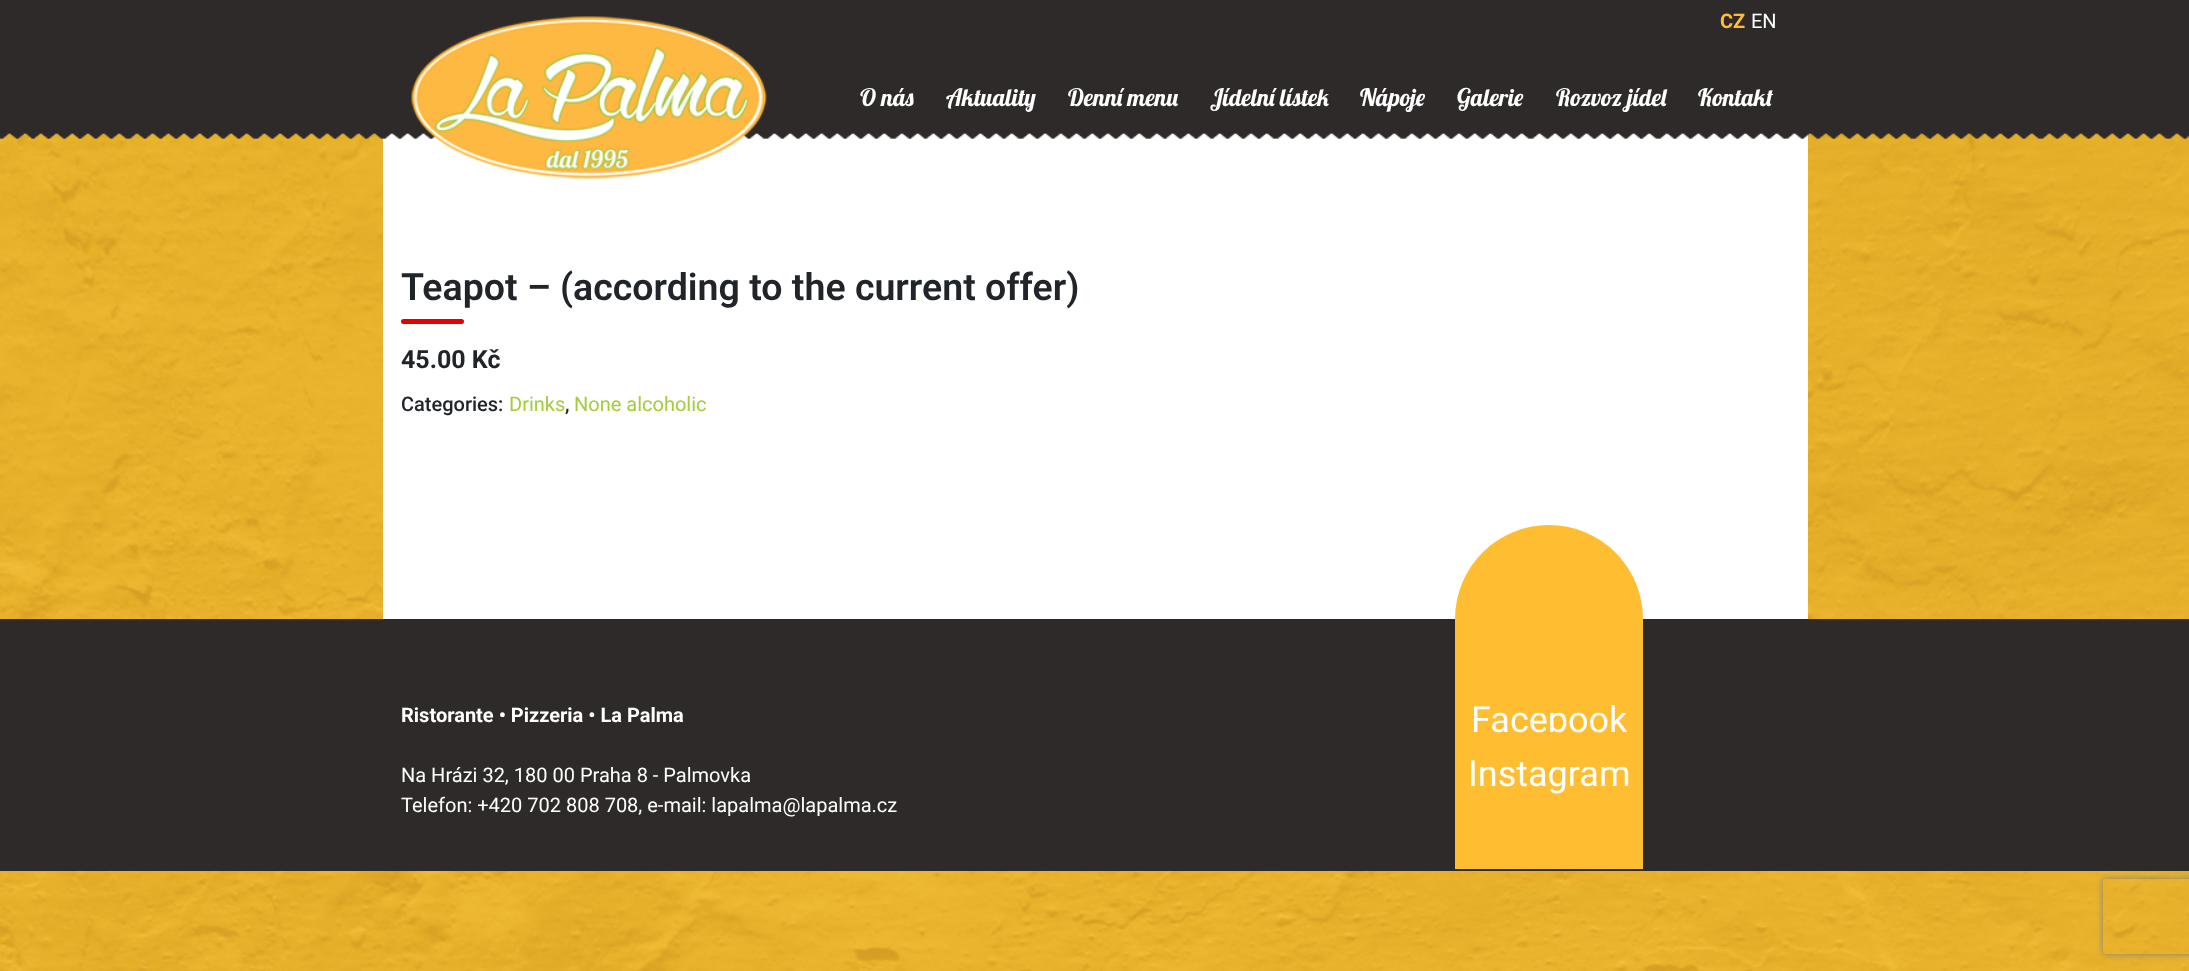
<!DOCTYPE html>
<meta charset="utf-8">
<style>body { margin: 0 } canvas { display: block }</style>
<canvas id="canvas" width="2189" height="971"></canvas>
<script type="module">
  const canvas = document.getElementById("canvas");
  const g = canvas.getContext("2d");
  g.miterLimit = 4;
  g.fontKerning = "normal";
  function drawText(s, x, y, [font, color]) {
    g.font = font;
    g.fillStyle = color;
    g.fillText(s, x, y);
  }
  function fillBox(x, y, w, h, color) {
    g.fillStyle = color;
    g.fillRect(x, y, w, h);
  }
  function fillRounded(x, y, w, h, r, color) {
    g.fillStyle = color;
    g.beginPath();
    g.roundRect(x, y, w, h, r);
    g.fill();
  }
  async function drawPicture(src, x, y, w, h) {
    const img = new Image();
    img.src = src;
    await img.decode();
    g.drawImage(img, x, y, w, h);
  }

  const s1 = ["bold 20px Roboto", "#FFBD31"];
  const s2 = ["20px Roboto", "#FFFFFF"];
  const s3 = ["24px Lobster", "#FFFFFF"];
  const s4 = ["600 37.5px Roboto", "#212529"];
  const s5 = ["bold 25px Roboto", "#212529"];
  const s6 = ["500 20px Roboto", "#212529"];
  const s7 = ["20px Roboto", "#A5CD3B"];
  const s8 = ["bold 20px Roboto", "#FFFFFF"];
  const s9 = ["36px Roboto", "#FFFFFF"];

  fillBox(0, 0, 2189, 971, "#FFFFFF");
  await drawPicture("pic1.png", 0, 133, 2189, 838);
  fillBox(0, 0, 2189, 125, "#2F2A2A");
  drawText("CZ", 1720, 28, s1);
  drawText("EN", 1751, 28, s2);
  fillBox(383, 133, 1425, 486, "#FFFFFF");
  await drawPicture("pic3.png", 0, 125, 2189, 14);
  await drawPicture("pic2.png", 411, 16, 356, 163);
  drawText("O nás", 860, 106, s3);
  drawText("Aktuality", 946, 106, s3);
  drawText("Denní menu", 1068, 106, s3);
  drawText("Jídelní lístek", 1210, 106, s3);
  drawText("Nápoje", 1360, 106, s3);
  drawText("Galerie", 1457, 106, s3);
  drawText("Rozvoz jídel", 1556, 106, s3);
  drawText("Kontakt", 1698, 106, s3);
  drawText("Teapot – (according to the current offer)", 401, 300, s4);
  fillRounded(401, 319, 63, 5, 2.5, "#E60000");
  drawText("45.00 Kč", 401, 368, s5);
  drawText("Categories:", 401, 411, s6);
  drawText("Drinks", 509, 411, s7);
  drawText(",", 565, 411, s6);
  drawText("None alcoholic", 574, 411, s7);
  fillBox(0, 619, 2189, 252, "#2F2A2A");
  drawText("Ristorante • Pizzeria • La Palma", 401, 722, s8);
  drawText("Na Hrázi 32, 180 00 Praha 8 - Palmovka", 401, 782, s2);
  drawText("Telefon: +420 702 808 708, e-mail: lapalma@lapalma.cz", 401, 812, s2);
  fillBox(1455, 619, 188, 250, "#FFBD31");
  drawText("Facebook", 1471, 732, s9);
  g.fillStyle = "#FFBD31";
  g.beginPath();
  g.arc(1549, 619, 94, 0, Math.PI * 2);
  g.fill();
  drawText("Instagram", 1468, 786, s9);
  g.save();
  g.beginPath();
  g.moveTo(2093, 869);
  g.lineTo(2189, 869);
  g.lineTo(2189, 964);
  g.lineTo(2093, 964);
  g.closePath();
  g.moveTo(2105.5, 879);
  g.lineTo(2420.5, 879);
  g.bezierCurveTo(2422, 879, 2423, 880, 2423, 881.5);
  g.lineTo(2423, 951.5);
  g.bezierCurveTo(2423, 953, 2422, 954, 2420.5, 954);
  g.lineTo(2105.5, 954);
  g.bezierCurveTo(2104, 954, 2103, 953, 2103, 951.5);
  g.lineTo(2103, 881.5);
  g.bezierCurveTo(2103, 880, 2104, 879, 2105.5, 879);
  g.closePath();
  g.clip("evenodd");
  g.fillStyle = "#808080";
  g.filter = "blur(3px)";
  g.beginPath();
  g.roundRect(2103, 879, 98, 75, 2.5);
  g.fill();
  g.filter = "none";
  g.restore();
</script>
